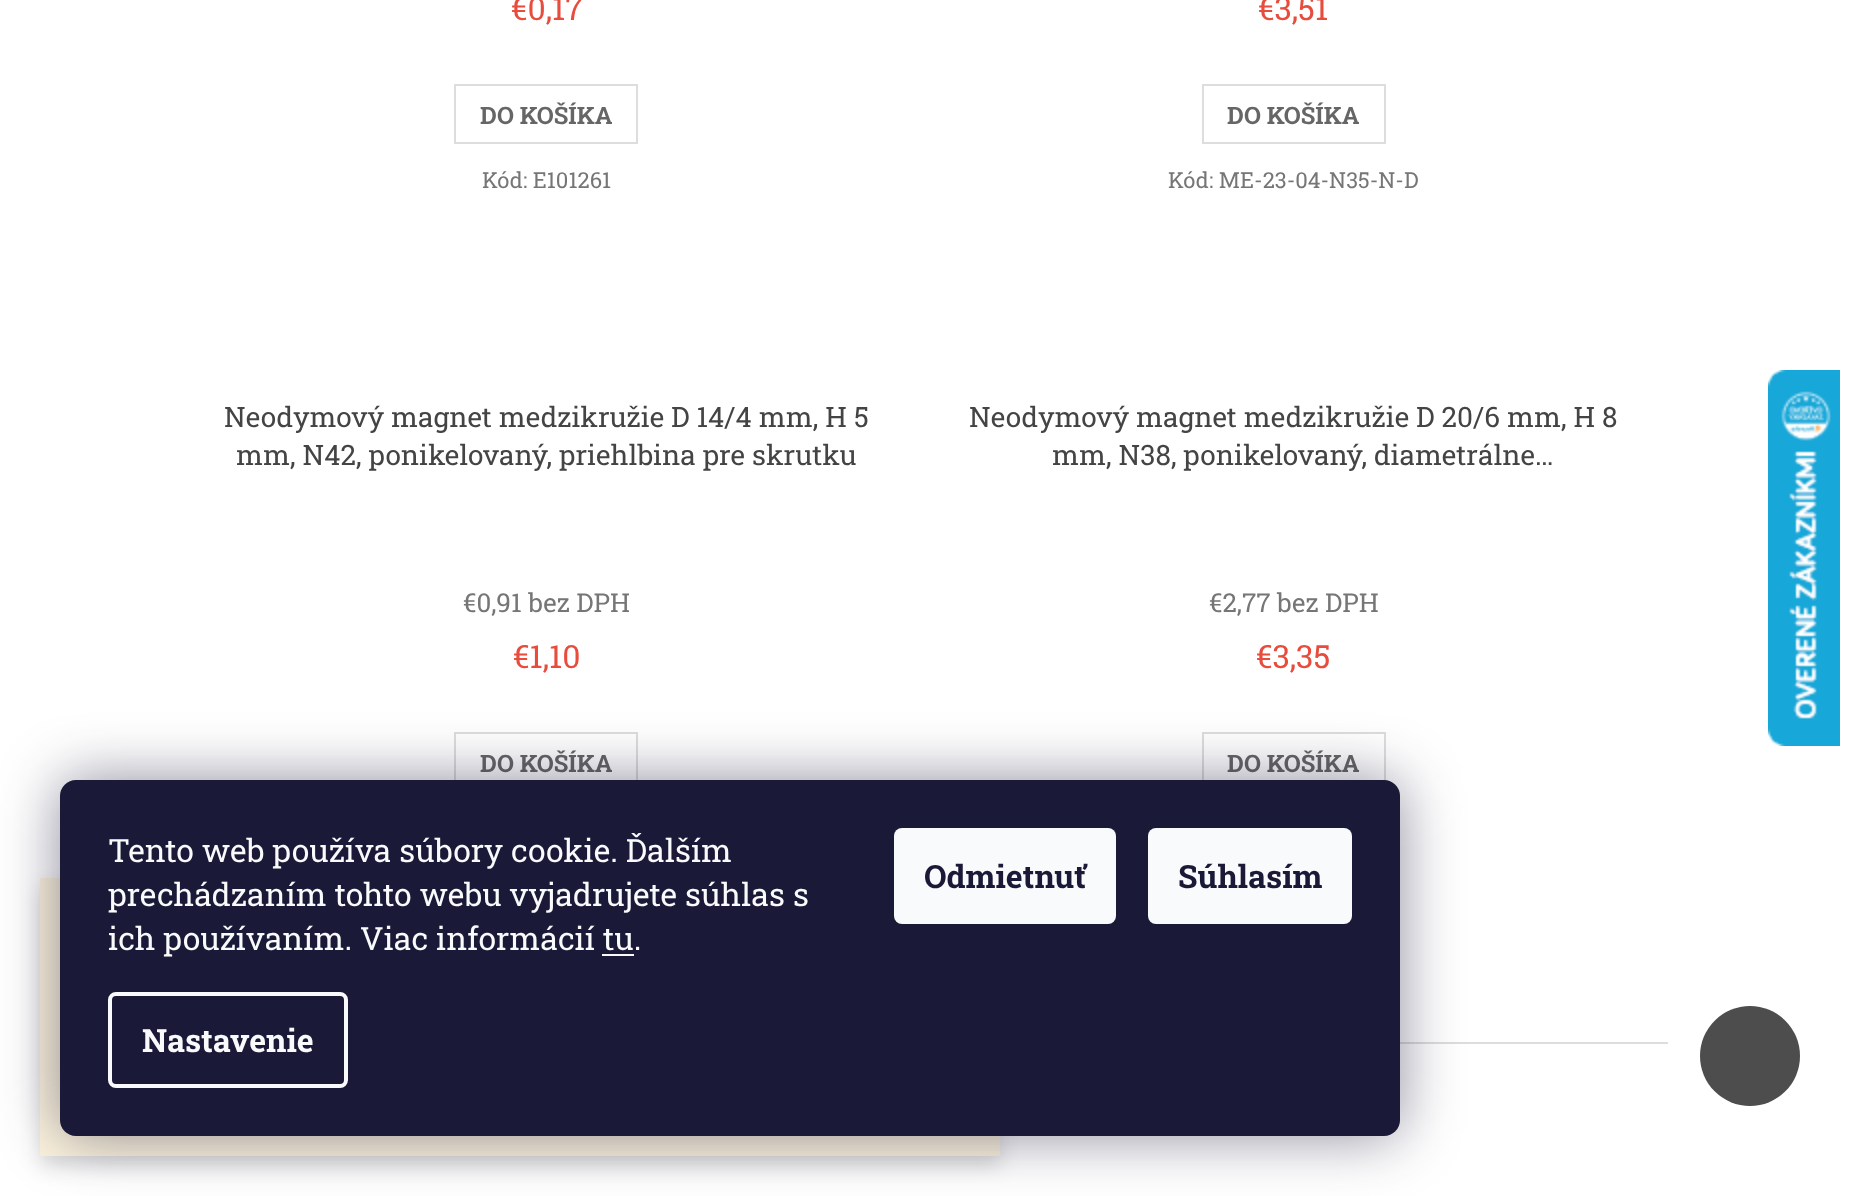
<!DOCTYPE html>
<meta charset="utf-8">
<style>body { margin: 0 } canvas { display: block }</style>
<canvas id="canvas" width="1870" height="1196"></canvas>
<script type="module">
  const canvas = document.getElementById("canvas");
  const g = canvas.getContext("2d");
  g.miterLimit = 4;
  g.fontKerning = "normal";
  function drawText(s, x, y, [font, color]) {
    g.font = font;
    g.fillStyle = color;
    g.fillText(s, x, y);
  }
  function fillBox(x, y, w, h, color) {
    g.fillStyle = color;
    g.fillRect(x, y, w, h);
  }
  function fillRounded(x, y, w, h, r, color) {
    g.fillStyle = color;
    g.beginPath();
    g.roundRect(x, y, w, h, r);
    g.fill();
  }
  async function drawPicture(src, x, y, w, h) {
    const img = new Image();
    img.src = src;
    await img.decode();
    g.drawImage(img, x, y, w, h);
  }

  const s1 = ["32px Roboto Slab", "#E74C3C"];
  const s2 = ["bold 24px Roboto Slab", "#666666"];
  const s3 = ["22px Roboto Slab", "#767676"];
  const s4 = ["28px Roboto Slab", "#444444"];
  const s5 = ["26px Roboto Slab", "#767676"];
  const s6 = ["32px Roboto Slab", "#F8FAFB"];
  const s7 = ["bold 32px Roboto Slab", "#F8FAFB"];
  const s8 = ["bold 32px Roboto Slab", "#1A1937"];

  fillBox(0, 0, 1870, 1196, "#FFFFFF");
  fillBox(40, 878, 960, 278, "#FDF4DE");
  drawText("€0,17", 511, 20, s1);
  g.strokeStyle = "#DDDDDD";
  g.lineWidth = 2;
  g.strokeRect(455, 85, 182, 58);
  drawText("DO KOŠÍKA", 480, 124, s2);
  drawText("Kód: E101261", 482, 188, s3);
  drawText("€3,51", 1258, 20, s1);
  g.strokeRect(1203, 85, 182, 58);
  drawText("DO KOŠÍKA", 1227, 124, s2);
  drawText("Kód: ME-23-04-N35-N-D", 1168, 188, s3);
  drawText("Neodymový magnet medzikružie D 14/4 mm, H 5", 224, 427, s4);
  drawText("mm, N42, ponikelovaný, priehlbina pre skrutku", 236, 465, s4);
  drawText("€0,91 bez DPH", 463, 612, s5);
  drawText("€1,10", 513, 668, s1);
  g.strokeRect(455, 733, 182, 58);
  drawText("DO KOŠÍKA", 480, 772, s2);
  drawText("Neodymový magnet medzikružie D 20/6 mm, H 8", 969, 427, s4);
  drawText("mm, N38, ponikelovaný, diametrálne…", 1052, 465, s4);
  drawText("€2,77 bez DPH", 1209, 612, s5);
  drawText("€3,35", 1256, 668, s1);
  g.strokeRect(1203, 733, 182, 58);
  drawText("DO KOŠÍKA", 1227, 772, s2);
  fillBox(1400, 1042, 268, 2, "#DDDDDD");
  g.save();
  g.beginPath();
  g.moveTo(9, 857);
  g.lineTo(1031, 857);
  g.lineTo(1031, 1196);
  g.lineTo(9, 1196);
  g.closePath();
  g.moveTo(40, 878);
  g.lineTo(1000, 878);
  g.lineTo(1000, 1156);
  g.lineTo(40, 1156);
  g.closePath();
  g.clip("evenodd");
  g.fillStyle = "rgba(0, 0, 0, 0.14)";
  g.filter = "blur(10px)";
  g.beginPath();
  g.rect(40, 888, 960, 278);
  g.fill();
  g.filter = "none";
  g.restore();
  await drawPicture("pic1.png", 1768, 370, 72, 376);
  g.fillStyle = "rgba(27, 25, 57, 0.5)";
  g.filter = "blur(30px)";
  g.beginPath();
  g.roundRect(60, 780, 1340, 356, 16);
  g.fill();
  g.filter = "none";
  fillRounded(60, 780, 1340, 356, 16, "#1A1937");
  drawText("Tento web používa súbory cookie. Ďalším", 108, 862, s6);
  drawText("prechádzaním tohto webu vyjadrujete súhlas s", 108, 906, s6);
  drawText("ich používaním. Viac informácií tu.", 108, 950, s6);
  fillBox(602, 954, 32, 2, "#F8FAFB");
  g.beginPath();
  g.roundRect(110, 994, 236, 92, 6);
  g.strokeStyle = "#F8FAFB";
  g.lineWidth = 4;
  g.stroke();
  drawText("Nastavenie", 142, 1052, s7);
  fillRounded(894, 828, 222, 96, 8, "#F8FAFB");
  drawText("Odmietnuť", 924, 888, s8);
  fillRounded(1148, 828, 204, 96, 8, "#F8FAFB");
  drawText("Súhlasím", 1178, 888, s8);
  g.fillStyle = "#4D4D4D";
  g.beginPath();
  g.arc(1750, 1056, 50, 0, Math.PI * 2);
  g.fill();
</script>
